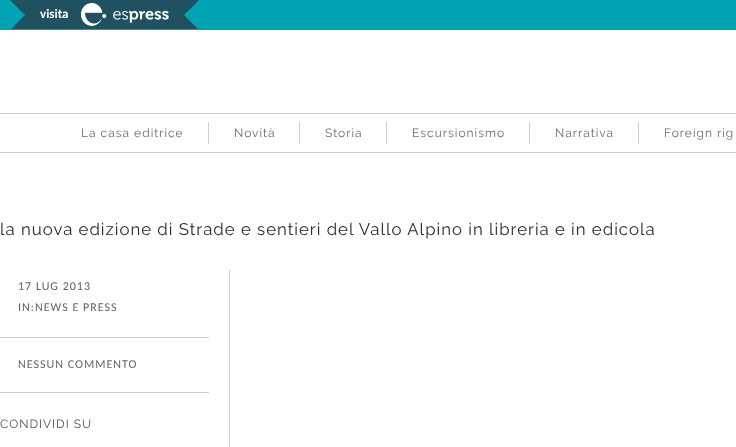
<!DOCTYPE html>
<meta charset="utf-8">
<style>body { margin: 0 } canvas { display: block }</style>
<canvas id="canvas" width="736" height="447"></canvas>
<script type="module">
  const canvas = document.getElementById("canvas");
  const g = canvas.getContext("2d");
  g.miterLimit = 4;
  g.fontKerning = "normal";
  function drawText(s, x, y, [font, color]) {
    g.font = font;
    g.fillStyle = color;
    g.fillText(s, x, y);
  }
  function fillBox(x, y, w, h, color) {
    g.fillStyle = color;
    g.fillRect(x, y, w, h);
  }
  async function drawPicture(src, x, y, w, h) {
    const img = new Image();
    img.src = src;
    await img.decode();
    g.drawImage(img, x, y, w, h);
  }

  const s1 = ["bold 13px Carlito", "#FFFFFF"];
  const s2 = ["100 12px Raleway", "#6C6C6C"];
  const s3 = ["100 16.8px Raleway", "#2B2828"];
  const s4 = ["12px Carlito", "#636060"];
  const s5 = ["12px Carlito", "#666666"];
  const s6 = ["100 12px Raleway", "#545252"];

  fillBox(0, 0, 736, 447, "#FFFFFF");
  fillBox(0, 0, 736, 30, "#00A3B4");
  fillBox(10, 0, 189, 29, "#1F5161");
  g.fillStyle = "#00A3B4";
  g.beginPath();
  g.moveTo(10, 30);
  g.lineTo(10, 0);
  g.lineTo(25, 15);
  g.closePath();
  g.fill();
  drawText("visita", 40, 18, s1);
  await drawPicture("pic1.png", 81, 3, 88, 23);
  g.fillStyle = "#00A3B4";
  g.beginPath();
  g.moveTo(199, 0);
  g.lineTo(199, 30);
  g.lineTo(184, 15);
  g.closePath();
  g.fill();
  fillBox(0, 113, 736, 1, "#CFCFCF");
  fillBox(0, 152, 736, 1, "#CFCFCF");
  g.letterSpacing = "1px";
  drawText("La casa editrice", 81, 137, s2);
  fillBox(208, 122, 1, 22, "#CFCFCF");
  drawText("Novità", 234, 137, s2);
  fillBox(299, 122, 1, 22, "#CFCFCF");
  drawText("Storia", 325, 137, s2);
  fillBox(386, 122, 1, 22, "#CFCFCF");
  drawText("Escursionismo", 412, 137, s2);
  fillBox(529, 122, 1, 22, "#CFCFCF");
  drawText("Narrativa", 555, 137, s2);
  fillBox(638, 122, 1, 22, "#CFCFCF");
  drawText("Foreign rig", 664, 137, s2);
  drawText("la nuova edizione di Strade e sentieri del Vallo Alpino in libreria e in edicola", 0, 235, s3);
  fillBox(229, 270, 1, 177, "#CFCFCF");
  drawText("17 LUG 2013", 18, 290, s4);
  drawText("IN:", 18, 311, s4);
  drawText("NEWS E PRESS", 35, 311, s5);
  fillBox(0, 337, 209, 1, "#CFCFCF");
  drawText("NESSUN COMMENTO", 18, 368, s5);
  fillBox(0, 392, 209, 1, "#CFCFCF");
  drawText("CONDIVIDI SU", 0, 428, s6);
</script>
